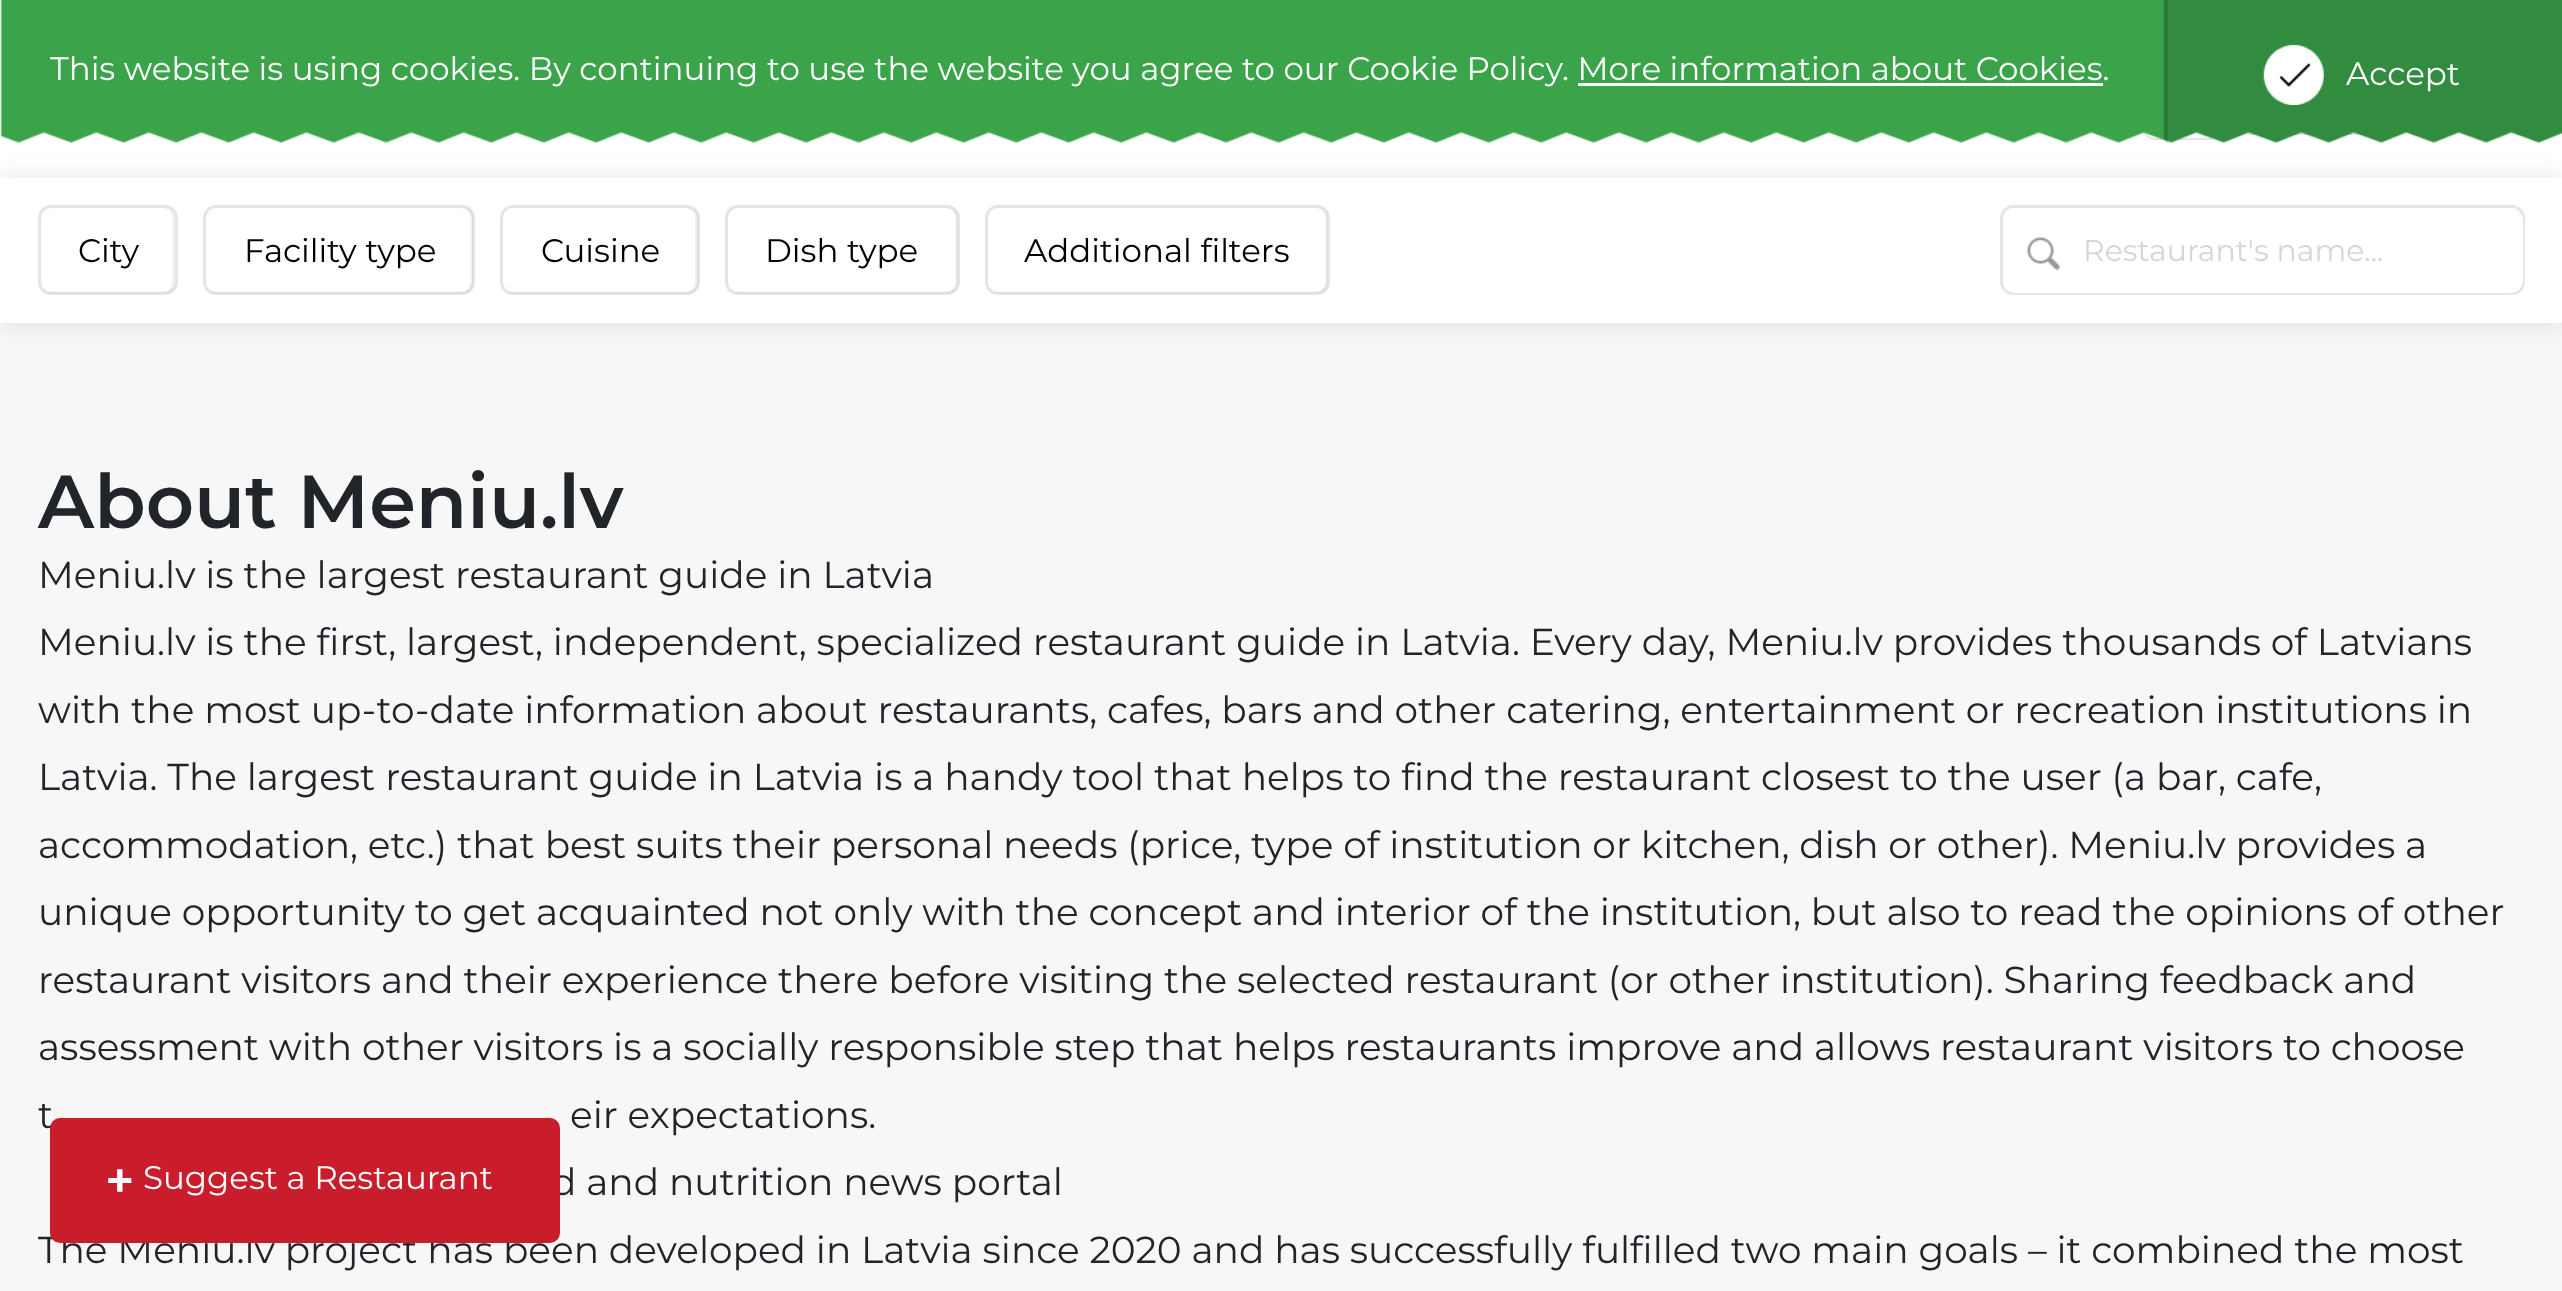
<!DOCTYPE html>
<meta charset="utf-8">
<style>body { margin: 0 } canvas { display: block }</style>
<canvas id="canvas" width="2562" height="1291"></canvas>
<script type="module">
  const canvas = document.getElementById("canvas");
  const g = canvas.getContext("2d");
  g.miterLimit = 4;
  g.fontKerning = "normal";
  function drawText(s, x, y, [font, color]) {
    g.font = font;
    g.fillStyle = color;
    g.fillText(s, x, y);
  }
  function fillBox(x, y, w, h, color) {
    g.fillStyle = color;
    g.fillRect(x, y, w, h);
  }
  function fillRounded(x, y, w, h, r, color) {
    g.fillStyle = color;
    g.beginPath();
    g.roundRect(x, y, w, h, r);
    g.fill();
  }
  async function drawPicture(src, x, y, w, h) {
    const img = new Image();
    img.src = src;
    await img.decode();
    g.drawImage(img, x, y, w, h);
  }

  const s1 = ["32.5px Montserrat", "#FFFFFF"];
  const s2 = ["32.5px Montserrat", "#000000"];
  const s3 = ["30px Montserrat", "#D6D6D6"];
  const s4 = ["600 75px Montserrat", "#212529"];
  const s5 = ["37.5px Montserrat", "#212529"];
  const s6 = ["600 50px Montserrat", "#FFFFFF"];

  fillBox(0, 0, 2562, 1291, "#F7F7F7");
  fillBox(0, 0, 2562, 178, "#FFFFFF");
  g.fillStyle = "rgba(0, 0, 0, 0.1)";
  g.filter = "blur(12.5px)";
  g.beginPath();
  g.rect(0, 178, 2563, 145);
  g.fill();
  g.filter = "none";
  g.fillStyle = "#E5E5E5";
  g.beginPath();
  g.moveTo(2155, 42);
  g.lineTo(2212, 42);
  g.lineTo(2212, 140);
  g.lineTo(2155, 140);
  g.bezierCurveTo(2148, 140, 2142, 134, 2142, 128);
  g.lineTo(2142, 55);
  g.bezierCurveTo(2142, 48, 2148, 42, 2155, 42);
  g.closePath();
  g.moveTo(2155, 45);
  g.lineTo(2212, 45);
  g.lineTo(2212, 138);
  g.lineTo(2155, 138);
  g.bezierCurveTo(2149, 138, 2145, 133, 2145, 128);
  g.lineTo(2145, 55);
  g.bezierCurveTo(2145, 49, 2149, 45, 2155, 45);
  g.closePath();
  g.fill("evenodd");
  g.fillStyle = "#E6E6E6";
  g.beginPath();
  g.moveTo(2248, 42);
  g.lineTo(2372, 42);
  g.bezierCurveTo(2379, 42, 2385, 48, 2385, 55);
  g.lineTo(2385, 122);
  g.bezierCurveTo(2385, 129, 2379, 135, 2372, 135);
  g.lineTo(2248, 135);
  g.closePath();
  g.moveTo(2248, 45);
  g.lineTo(2372, 45);
  g.bezierCurveTo(2378, 45, 2382, 49, 2382, 55);
  g.lineTo(2382, 122);
  g.bezierCurveTo(2382, 128, 2378, 132, 2372, 132);
  g.lineTo(2248, 132);
  g.closePath();
  g.fill("evenodd");
  await drawPicture("pic1.png", 0, 0, 2562, 143);
  drawText("This website is using cookies. By continuing to use the website you agree to our Cookie Policy. More information about Cookies.", 50, 80, s1);
  fillBox(1578, 83, 525, 3, "#FFFFFF");
  fillBox(2165, 0, 3, 143, "rgba(0, 0, 0, 0.1)");
  await drawPicture("pic2.png", 2263, 44, 61, 61);
  drawText("Accept", 2346, 85, s1);
  fillBox(0, 178, 2562, 145, "#FFFFFF");
  g.fillStyle = "#F2F2F2";
  g.beginPath();
  g.moveTo(45, 292);
  g.bezierCurveTo(46, 292, 48, 293, 50, 293);
  g.lineTo(165, 293);
  g.bezierCurveTo(171, 293, 175, 289, 175, 283);
  g.lineTo(175, 218);
  g.bezierCurveTo(175, 212, 171, 208, 165, 208);
  g.lineTo(162, 208);
  g.bezierCurveTo(168, 208, 172, 212, 172, 218);
  g.lineTo(172, 282);
  g.bezierCurveTo(172, 288, 168, 292, 162, 292);
  g.lineTo(48, 292);
  g.closePath();
  g.fill();
  g.beginPath();
  g.roundRect(39.5, 206.5, 137, 87, 11.5);
  g.strokeStyle = "rgba(0, 0, 0, 0.1)";
  g.lineWidth = 3;
  g.stroke();
  drawText("City", 78, 262, s2);
  g.fillStyle = "#F2F2F2";
  g.beginPath();
  g.moveTo(210, 292);
  g.bezierCurveTo(212, 293, 213, 293, 215, 293);
  g.lineTo(463, 293);
  g.bezierCurveTo(469, 293, 473, 289, 473, 283);
  g.lineTo(473, 218);
  g.bezierCurveTo(473, 212, 469, 208, 463, 208);
  g.lineTo(460, 208);
  g.bezierCurveTo(466, 208, 470, 212, 470, 218);
  g.lineTo(470, 282);
  g.bezierCurveTo(470, 288, 466, 292, 460, 292);
  g.closePath();
  g.fill();
  g.beginPath();
  g.roundRect(204.5, 206.5, 269, 87, 11.5);
  g.stroke();
  drawText("Facility type", 244, 262, s2);
  g.fillStyle = "#F2F2F2";
  g.beginPath();
  g.moveTo(508, 292);
  g.bezierCurveTo(510, 293, 511, 293, 513, 293);
  g.lineTo(688, 293);
  g.bezierCurveTo(694, 293, 698, 289, 698, 283);
  g.lineTo(698, 218);
  g.bezierCurveTo(698, 212, 694, 208, 688, 208);
  g.lineTo(685, 208);
  g.bezierCurveTo(691, 208, 695, 212, 695, 218);
  g.lineTo(695, 282);
  g.bezierCurveTo(695, 288, 691, 292, 685, 292);
  g.closePath();
  g.fill();
  g.beginPath();
  g.roundRect(501.5, 206.5, 197, 87, 11.5);
  g.stroke();
  drawText("Cuisine", 541, 262, s2);
  g.fillStyle = "#F2F2F2";
  g.beginPath();
  g.moveTo(733, 292);
  g.bezierCurveTo(735, 293, 736, 293, 738, 293);
  g.lineTo(948, 293);
  g.bezierCurveTo(954, 293, 958, 289, 958, 283);
  g.lineTo(958, 218);
  g.bezierCurveTo(958, 212, 954, 208, 948, 208);
  g.lineTo(945, 208);
  g.bezierCurveTo(951, 208, 955, 212, 955, 218);
  g.lineTo(955, 282);
  g.bezierCurveTo(955, 288, 951, 292, 945, 292);
  g.closePath();
  g.fill();
  g.beginPath();
  g.roundRect(726.5, 206.5, 232, 87, 11.5);
  g.stroke();
  drawText("Dish type", 765, 262, s2);
  g.fillStyle = "#F2F2F2";
  g.beginPath();
  g.moveTo(993, 292);
  g.bezierCurveTo(995, 293, 996, 293, 998, 293);
  g.lineTo(1318, 293);
  g.bezierCurveTo(1324, 293, 1328, 289, 1328, 283);
  g.lineTo(1328, 218);
  g.bezierCurveTo(1328, 212, 1324, 208, 1318, 208);
  g.lineTo(1315, 208);
  g.bezierCurveTo(1321, 208, 1325, 212, 1325, 218);
  g.lineTo(1325, 282);
  g.bezierCurveTo(1325, 288, 1321, 292, 1315, 292);
  g.closePath();
  g.fill();
  g.beginPath();
  g.roundRect(986.5, 206.5, 342, 87, 11.5);
  g.stroke();
  drawText("Additional filters", 1024, 262, s2);
  g.beginPath();
  g.roundRect(2001.5, 206.5, 522, 87, 11.5);
  g.strokeStyle = "#E6E6E6";
  g.stroke();
  fillRounded(2003, 208, 520, 85, 13, "#FFFFFF");
  await drawPicture("pic3.png", 2027, 237, 33, 33);
  drawText("Restaurant's name...", 2083, 261, s3);
  drawText("About Meniu.lv", 38, 528, s4);
  drawText("Meniu.lv is the largest restaurant guide in Latvia", 38, 588, s5);
  drawText("Meniu.lv is the first, largest, independent, specialized restaurant guide in Latvia. Every day, Meniu.lv provides thousands of Latvians", 38, 655, s5);
  drawText("with the most up-to-date information about restaurants, cafes, bars and other catering, entertainment or recreation institutions in", 38, 723, s5);
  drawText("Latvia. The largest restaurant guide in Latvia is a handy tool that helps to find the restaurant closest to the user (a bar, cafe,", 38, 790, s5);
  drawText("accommodation, etc.) that best suits their personal needs (price, type of institution or kitchen, dish or other). Meniu.lv provides a", 38, 858, s5);
  drawText("unique opportunity to get acquainted not only with the concept and interior of the institution, but also to read the opinions of other", 38, 925, s5);
  drawText("restaurant visitors and their experience there before visiting the selected restaurant (or other institution). Sharing feedback and", 38, 993, s5);
  drawText("assessment with other visitors is a socially responsible step that helps restaurants improve and allows restaurant visitors to choose", 38, 1060, s5);
  drawText("t", 38, 1128, s5);
  drawText("eir expectations.", 570, 1128, s5);
  drawText("d and nutrition news portal", 551, 1195, s5);
  drawText("The Meniu.lv project has been developed in Latvia since 2020 and has successfully fulfilled two main goals – it combined the most", 38, 1263, s5);
  fillRounded(50, 1118, 510, 125, 10, "#C91D2C");
  drawText("+", 105, 1198, s6);
  drawText("Suggest a Restaurant", 143, 1189, s1);
</script>
